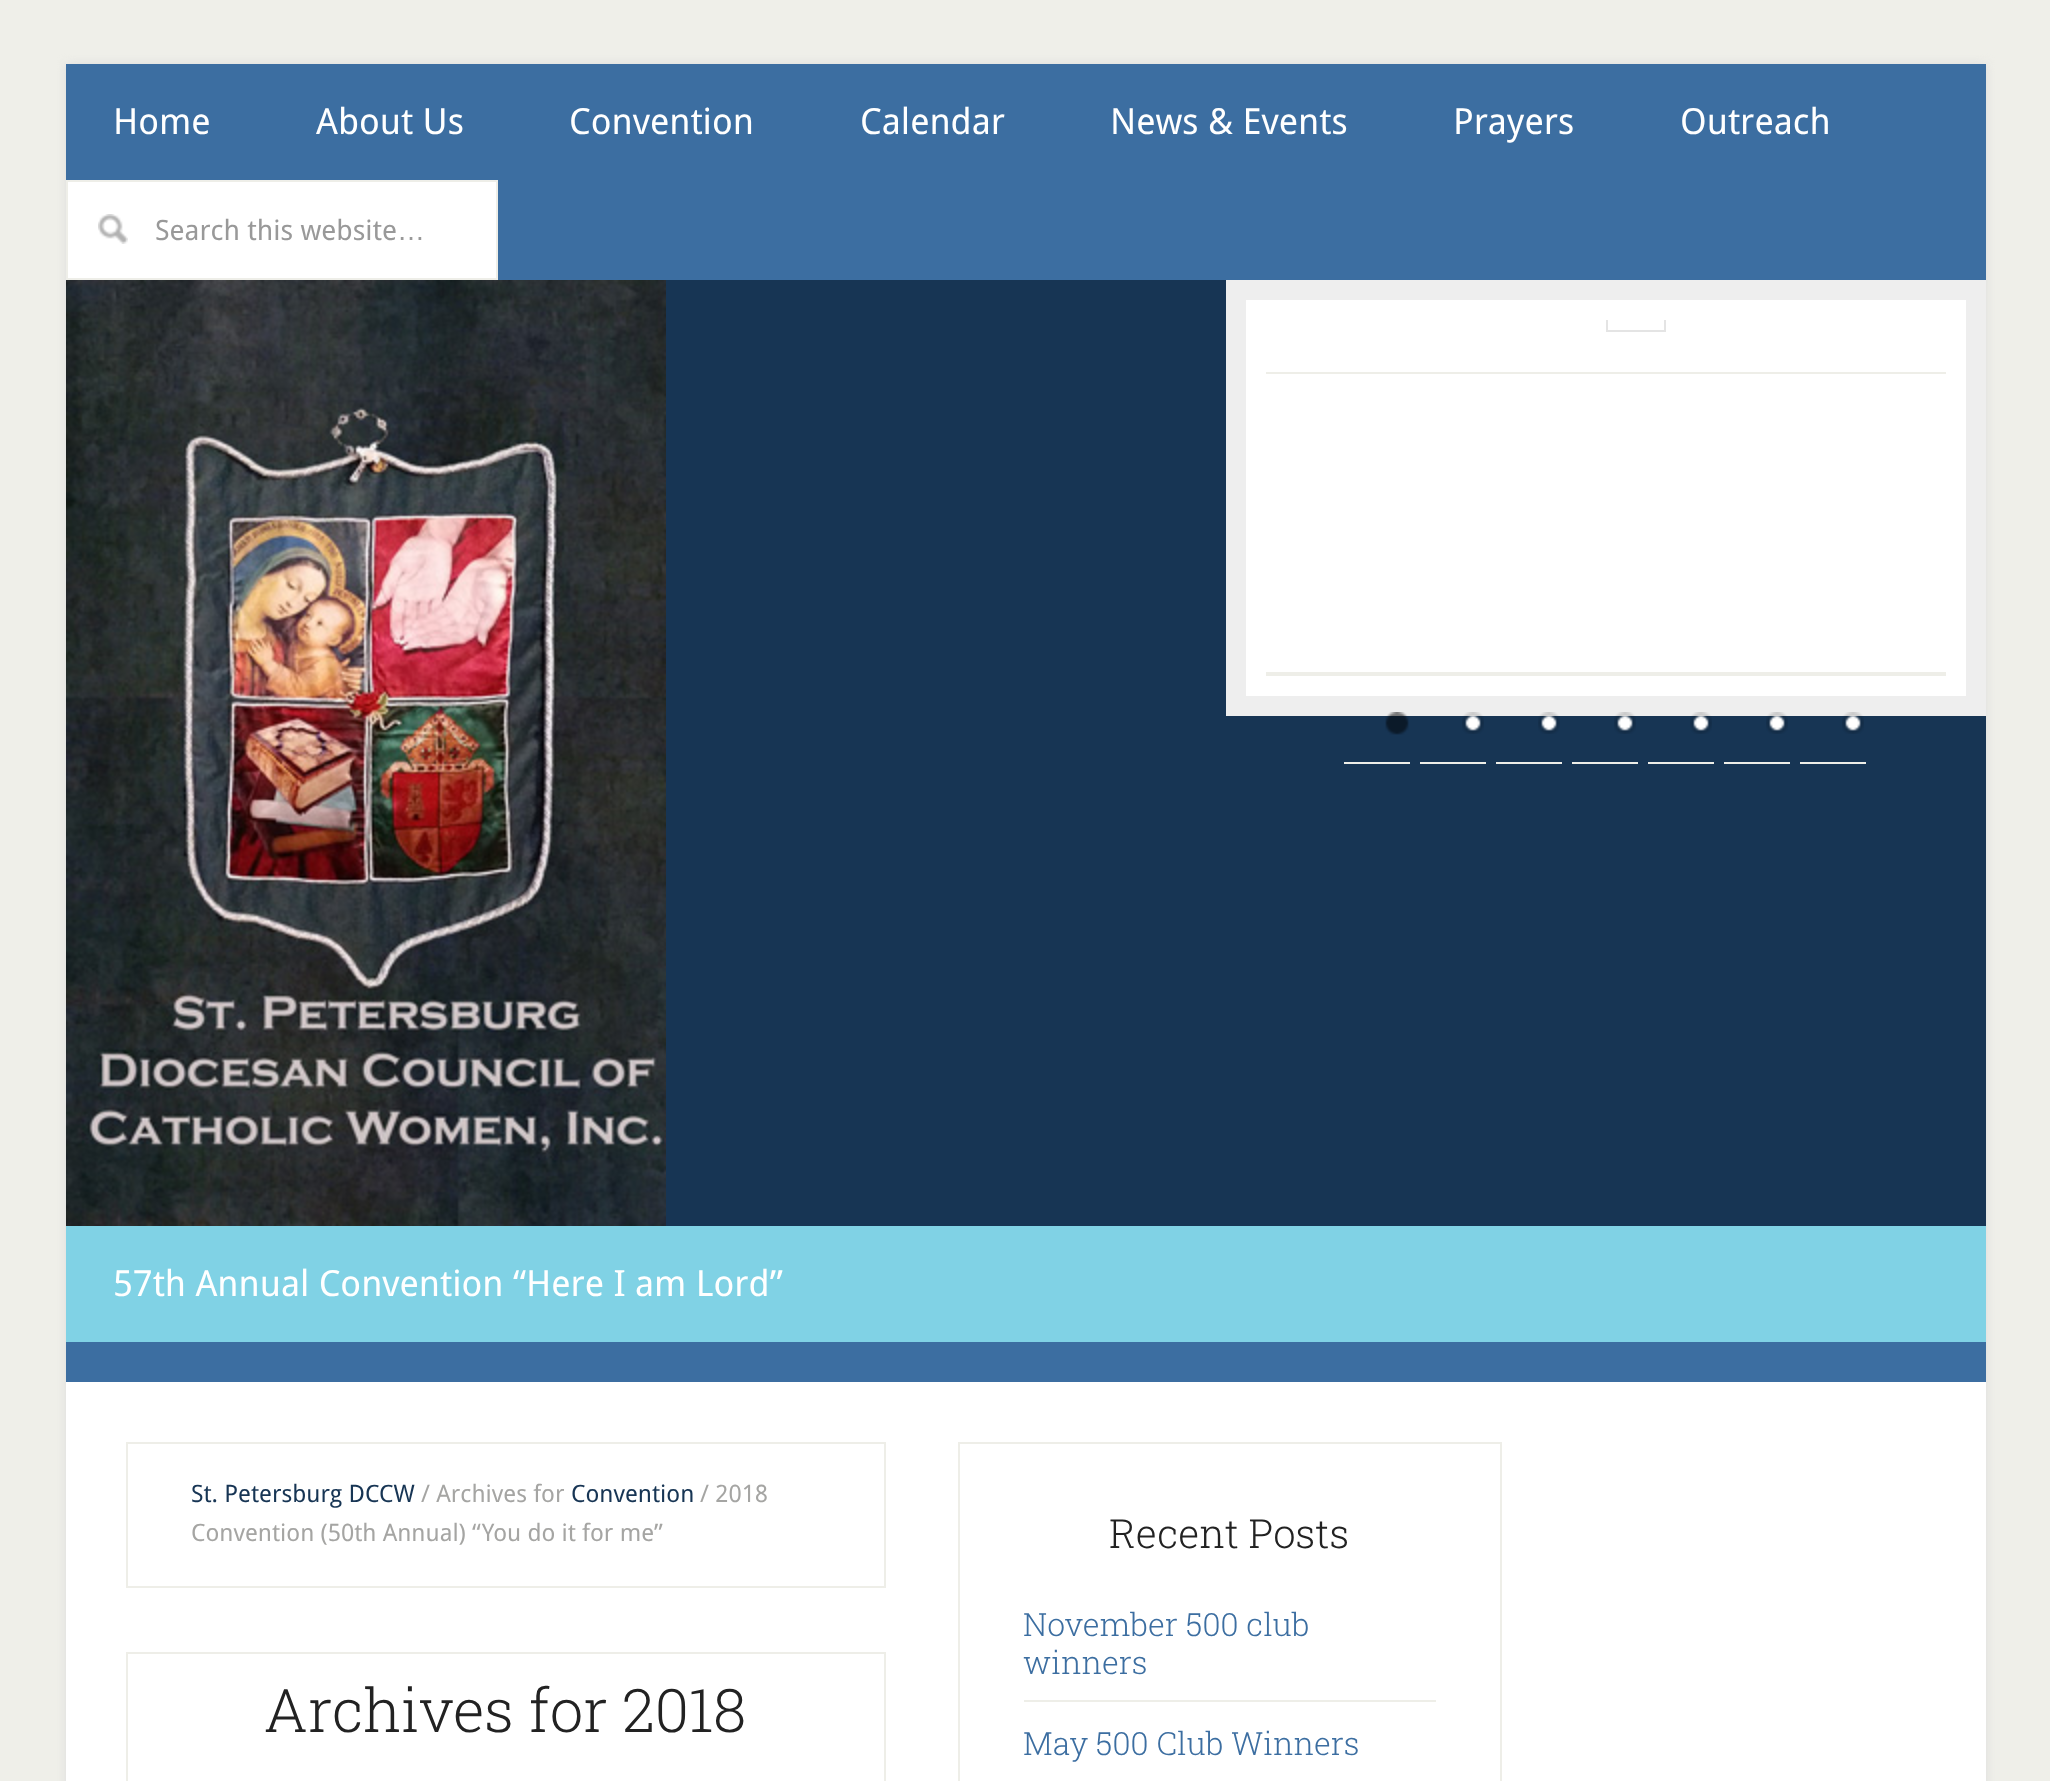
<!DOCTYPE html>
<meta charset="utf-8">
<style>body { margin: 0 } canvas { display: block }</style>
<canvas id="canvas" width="2050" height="1781"></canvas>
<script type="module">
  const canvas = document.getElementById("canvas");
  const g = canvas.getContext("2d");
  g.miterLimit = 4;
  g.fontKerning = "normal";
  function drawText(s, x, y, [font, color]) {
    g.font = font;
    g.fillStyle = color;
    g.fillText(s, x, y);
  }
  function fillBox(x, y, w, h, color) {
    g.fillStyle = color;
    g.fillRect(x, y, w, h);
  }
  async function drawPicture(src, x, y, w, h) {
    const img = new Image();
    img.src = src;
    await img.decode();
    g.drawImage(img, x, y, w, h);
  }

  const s1 = ["36px Droid Sans", "#FFFFFF"];
  const s2 = ["28px Droid Sans", "#999999"];
  const s3 = ["28px Liberation Sans", "#999999"];
  const s4 = ["24px Droid Sans", "#173554"];
  const s5 = ["24px Droid Sans", "#A5A5A3"];
  const s6 = ["300 60px Roboto Slab", "#222222"];
  const s7 = ["300 40px Roboto Slab", "#222222"];
  const s8 = ["300 32px Roboto Slab", "#3C6EA1"];

  fillBox(0, 0, 2050, 1781, "#EFEFE9");
  g.fillStyle = "#DDDDDD";
  g.filter = "blur(5px)";
  g.beginPath();
  g.rect(66, 64, 1920, 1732);
  g.fill();
  g.filter = "none";
  fillBox(66, 1382, 1920, 399, "#FFFFFF");
  fillBox(66, 64, 1920, 216, "#3C6EA1");
  drawText("Home", 113, 134, s1);
  drawText("About Us", 316, 134, s1);
  drawText("Convention", 569, 134, s1);
  drawText("Calendar", 860, 134, s1);
  drawText("News & Events", 1110, 134, s1);
  drawText("Prayers", 1453, 134, s1);
  drawText("Outreach", 1680, 134, s1);
  fillBox(68, 182, 428, 96, "#FFFFFF");
  await drawPicture("pic1.png", 98, 214, 30, 30);
  g.strokeStyle = "#EEEEE8";
  g.lineWidth = 2;
  g.strokeRect(67, 181, 430, 98);
  drawText("Search this website", 155, 240, s2);
  drawText("…", 397, 240, s3);
  fillBox(666, 280, 1320, 946, "#173554");
  await drawPicture("pic2.png", 66, 280, 600, 946);
  g.fillStyle = "#FFFFFF";
  g.beginPath();
  g.rect(1236, 290, 740, 416);
  g.fill();
  g.strokeStyle = "#EEEEEE";
  g.lineWidth = 20;
  g.stroke();
  fillBox(1266, 372, 680, 2, "#EEEEE8");
  g.save();
  g.beginPath();
  g.rect(1266, 320, 680, 352);
  g.clip();
  g.strokeStyle = "#E4E4E4";
  g.lineWidth = 2;
  g.strokeRect(1607, 273, 58, 58);
  g.restore();
  fillBox(1266, 672, 680, 4, "#EEEEE8");
  fillBox(1344, 762, 66, 2, "#EEEEE8");
  await drawPicture("pic3.png", 1385, 712, 24, 23);
  fillBox(1420, 762, 66, 2, "#EEEEE8");
  await drawPicture("pic4.png", 1462, 712, 22, 22);
  fillBox(1496, 762, 66, 2, "#EEEEE8");
  await drawPicture("pic4.png", 1538, 712, 22, 22);
  fillBox(1572, 762, 66, 2, "#EEEEE8");
  await drawPicture("pic4.png", 1614, 712, 22, 22);
  fillBox(1648, 762, 66, 2, "#EEEEE8");
  await drawPicture("pic4.png", 1690, 712, 22, 22);
  fillBox(1724, 762, 66, 2, "#EEEEE8");
  await drawPicture("pic4.png", 1766, 712, 22, 22);
  fillBox(1800, 762, 66, 2, "#EEEEE8");
  await drawPicture("pic4.png", 1842, 712, 22, 22);
  fillBox(66, 1226, 1920, 116, "#80D2E5");
  drawText("57th Annual Convention “Here I am Lord”", 113, 1296, s1);
  fillBox(66, 1342, 1920, 40, "#3C6EA1");
  g.strokeStyle = "#EEEEE8";
  g.lineWidth = 2;
  g.strokeRect(127, 1443, 758, 144);
  drawText("St. Petersburg DCCW", 191, 1502, s4);
  drawText("/ Archives for", 421, 1502, s5);
  drawText("Convention", 571, 1502, s4);
  drawText("/ 2018", 700, 1502, s5);
  drawText("Convention (50th Annual) “You do it for me”", 191, 1541, s5);
  g.strokeRect(127, 1653, 758, 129);
  drawText("Archives for 2018", 264, 1732, s6);
  g.strokeRect(959, 1443, 542, 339);
  drawText("Recent Posts", 1109, 1548, s7);
  fillBox(1024, 1700, 412, 2, "#EEEEE8");
  drawText("November 500 club", 1023, 1636, s8);
  drawText("winners", 1023, 1674, s8);
  drawText("May 500 Club Winners", 1023, 1755, s8);
</script>
